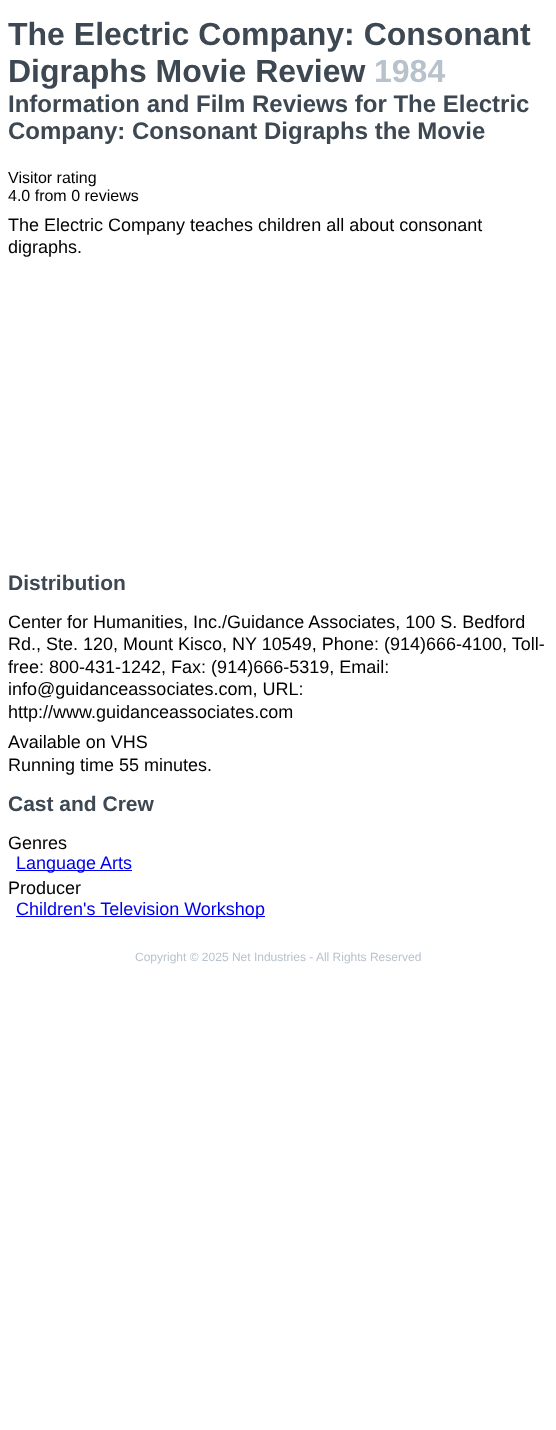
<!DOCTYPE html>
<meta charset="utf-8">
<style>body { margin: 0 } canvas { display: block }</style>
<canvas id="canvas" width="556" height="1430"></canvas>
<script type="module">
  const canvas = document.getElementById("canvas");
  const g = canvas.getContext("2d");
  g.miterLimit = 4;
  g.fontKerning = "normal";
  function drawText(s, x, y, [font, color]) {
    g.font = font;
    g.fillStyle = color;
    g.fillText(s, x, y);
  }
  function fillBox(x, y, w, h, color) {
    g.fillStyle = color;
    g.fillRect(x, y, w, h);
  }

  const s1 = ["bold 32px Liberation Sans", "#3D4852"];
  const s2 = ["bold 32px Liberation Sans", "#B8C2CC"];
  const s3 = ["bold 24px Liberation Sans", "#3D4852"];
  const s4 = ["16px Liberation Sans", "#000000"];
  const s5 = ["18px Liberation Sans", "#000000"];
  const s6 = ["bold 21px Liberation Sans", "#3D4852"];
  const s7 = ["18px Liberation Sans", "#0000EE"];
  const s8 = ["12px Liberation Sans", "#B8C2CC"];

  fillBox(0, 0, 556, 1430, "#FFFFFF");
  drawText("The Electric Company: Consonant", 8, 45, s1);
  drawText("Digraphs Movie Review", 8, 82, s1);
  drawText("1984", 374, 82, s2);
  drawText("Information and Film Reviews for The Electric", 8, 112, s3);
  drawText("Company: Consonant Digraphs the Movie", 8, 139, s3);
  drawText("Visitor rating", 8, 183, s4);
  drawText("4.0 from 0 reviews", 8, 201, s4);
  drawText("The Electric Company teaches children all about consonant", 8, 231, s5);
  drawText("digraphs.", 8, 253, s5);
  drawText("Distribution", 8, 590, s6);
  drawText("Center for Humanities, Inc./Guidance Associates, 100 S. Bedford", 8, 628, s5);
  drawText("Rd., Ste. 120, Mount Kisco, NY 10549, Phone: (914)666-4100, Toll-", 8, 650, s5);
  drawText("free: 800-431-1242, Fax: (914)666-5319, Email:", 8, 673, s5);
  drawText("info@guidanceassociates.com, URL:", 8, 695, s5);
  drawText("http://www.guidanceassociates.com", 8, 718, s5);
  drawText("Available on VHS", 8, 748, s5);
  drawText("Running time 55 minutes.", 8, 771, s5);
  drawText("Cast and Crew", 8, 811, s6);
  drawText("Genres", 8, 849, s5);
  fillBox(16, 870, 116, 1, "#0000EE");
  drawText("Language Arts", 16, 869, s7);
  drawText("Producer", 8, 894, s5);
  fillBox(16, 916, 249, 1, "#0000EE");
  drawText("Children's Television Workshop", 16, 915, s7);
  drawText("Copyright © 2025 Net Industries - All Rights Reserved", 135, 961, s8);
</script>
